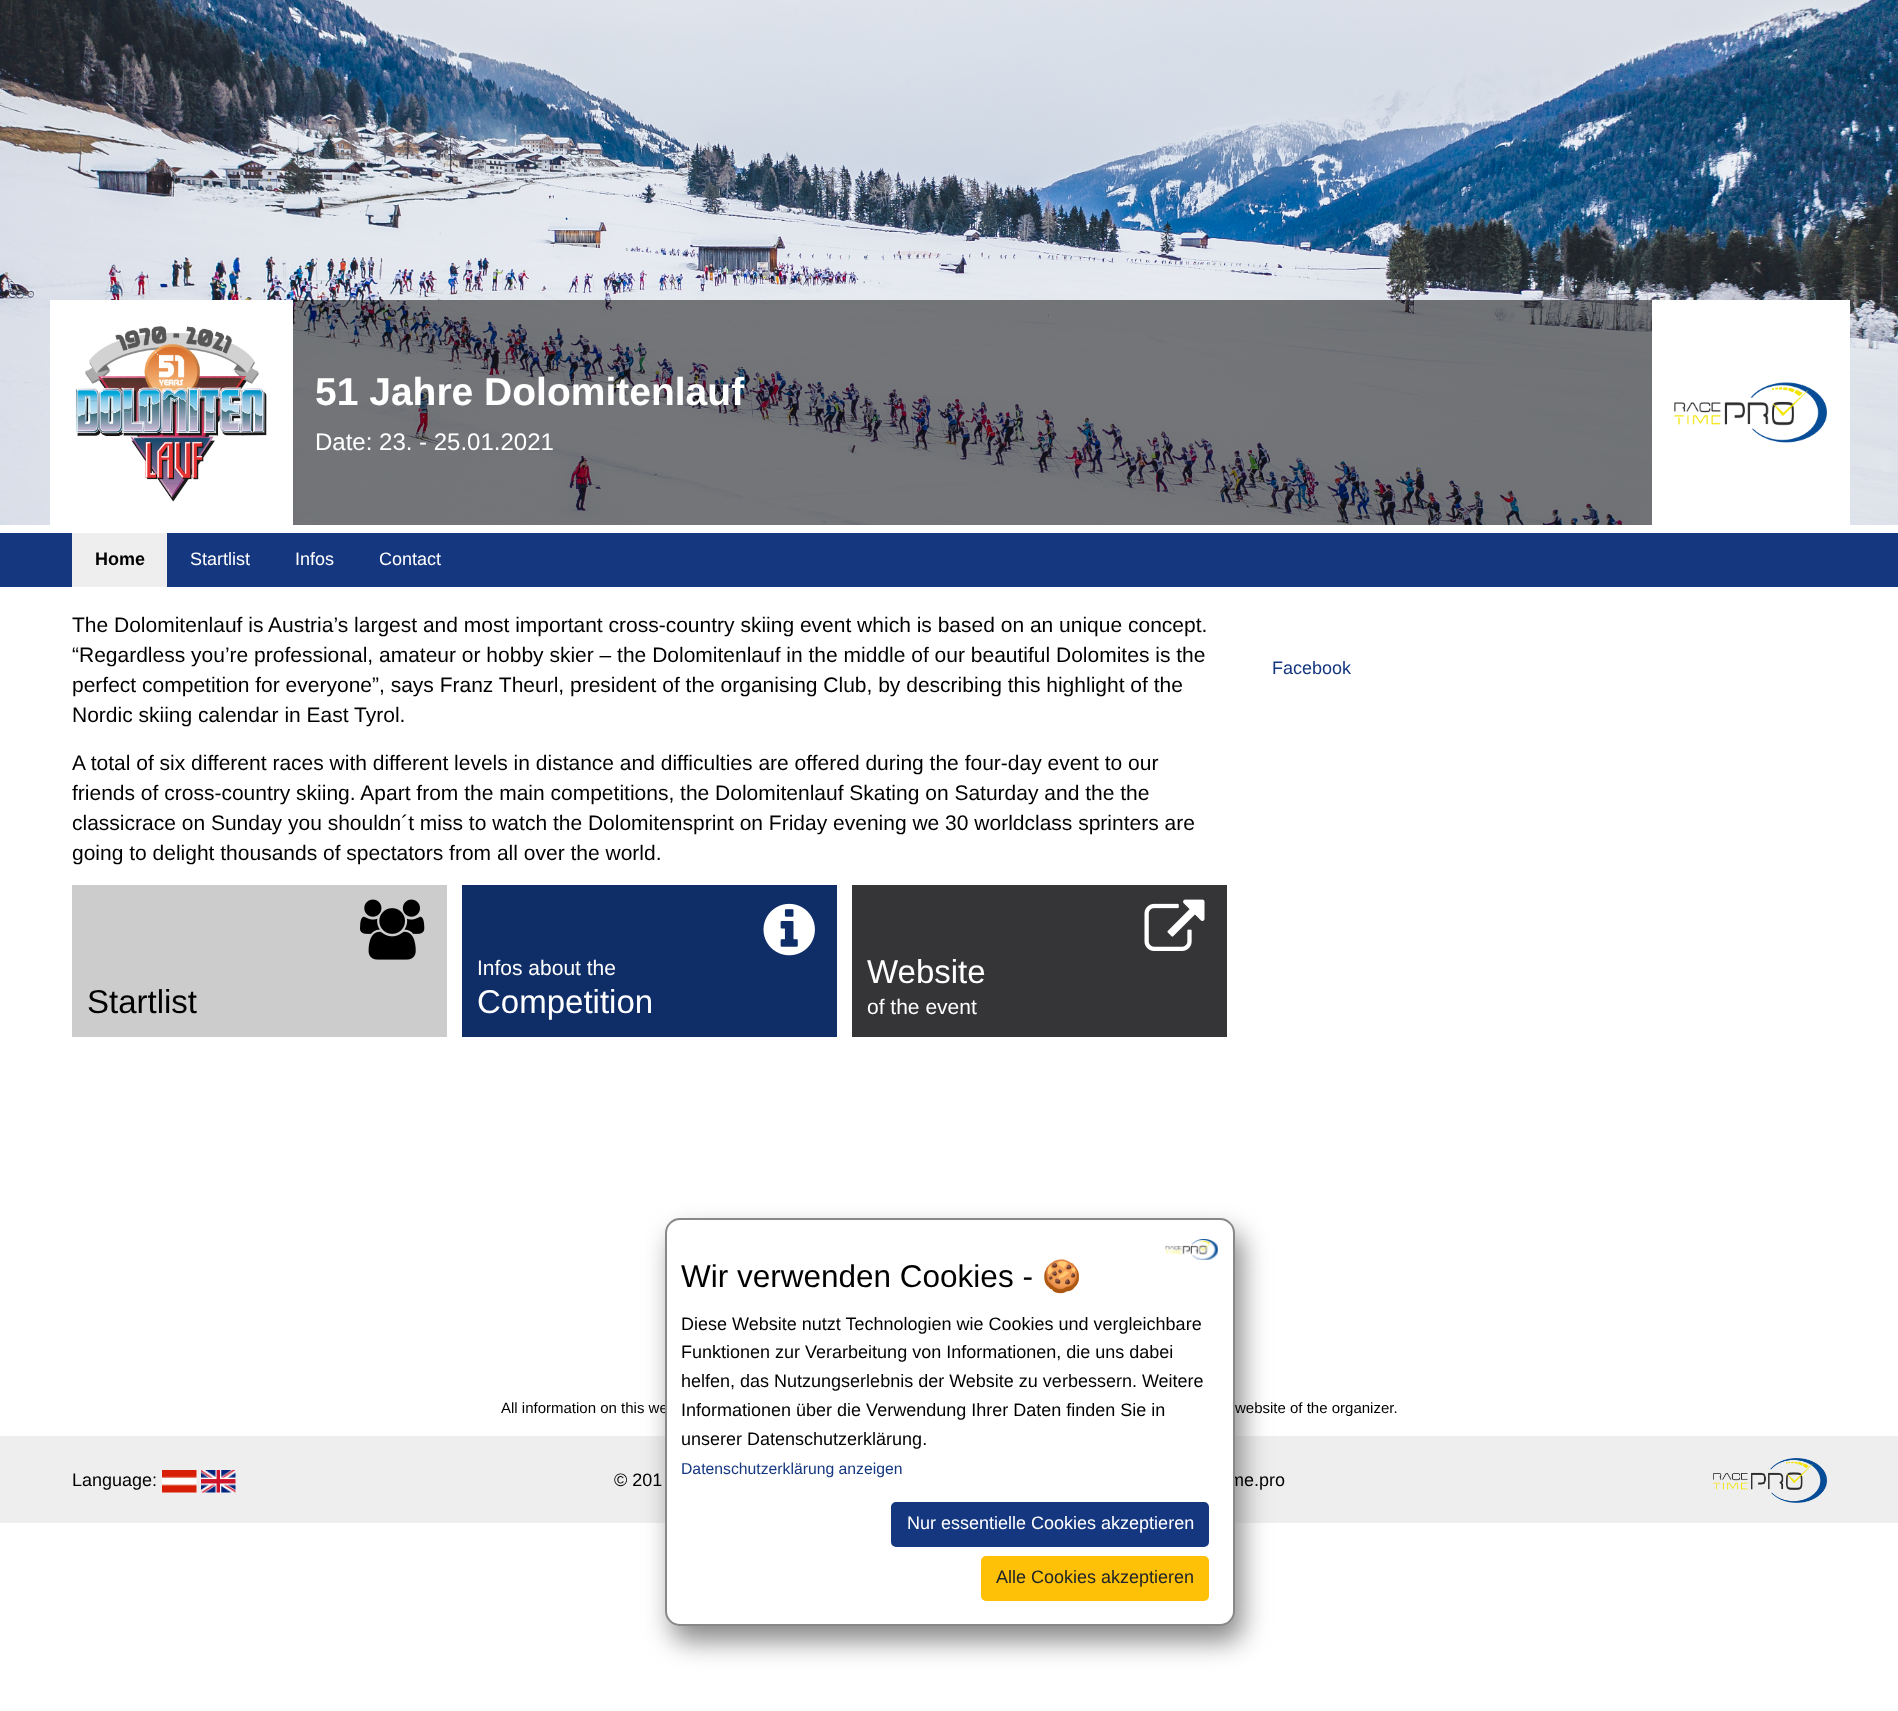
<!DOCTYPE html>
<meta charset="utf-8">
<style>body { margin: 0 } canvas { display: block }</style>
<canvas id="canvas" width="1898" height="1711"></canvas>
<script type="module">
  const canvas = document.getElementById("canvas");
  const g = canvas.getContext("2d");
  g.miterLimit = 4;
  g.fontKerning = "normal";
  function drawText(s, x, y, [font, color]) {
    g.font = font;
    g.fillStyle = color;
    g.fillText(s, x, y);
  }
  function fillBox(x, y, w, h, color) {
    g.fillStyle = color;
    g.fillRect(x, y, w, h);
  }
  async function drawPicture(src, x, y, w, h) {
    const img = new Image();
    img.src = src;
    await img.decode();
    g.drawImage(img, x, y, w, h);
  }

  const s1 = ["bold 39px Liberation Sans", "#FFFFFF"];
  const s2 = ["24px Liberation Sans", "#FFFFFF"];
  const s3 = ["bold 18px Liberation Sans", "#000000"];
  const s4 = ["18px Liberation Sans", "#FFFFFF"];
  const s5 = ["21px Liberation Sans", "#000000"];
  const s6 = ["33px Liberation Sans", "#000000"];
  const s7 = ["21px Liberation Sans", "#FFFFFF"];
  const s8 = ["33px Liberation Sans", "#FFFFFF"];
  const s9 = ["18px Liberation Sans", "#15377F"];
  const s10 = ["15px Liberation Sans", "#000000"];
  const s11 = ["18px Liberation Sans", "#000000"];
  const s12 = ["31.5px Liberation Sans", "#000000"];
  const s13 = ["31.5px Noto Color Emoji", "#000000"];
  const s14 = ["15.75px Liberation Sans", "#15377F"];
  const s15 = ["18px Liberation Sans", "#212529"];

  fillBox(0, 0, 1898, 1711, "#FFFFFF");
  await drawPicture("pic1.png", 0, 0, 1898, 525);
  fillBox(293, 300, 1359, 225, "rgba(0, 0, 0, 0.5)");
  fillBox(50, 300, 243, 225, "#FFFFFF");
  await drawPicture("pic2.png", 75, 326, 192, 176);
  drawText("51 Jahre Dolomitenlauf", 315, 405, s1);
  drawText("Date: 23. - 25.01.2021", 315, 450, s2);
  fillBox(1652, 300, 198, 225, "#FFFFFF");
  await drawPicture("pic3.png", 1674, 382, 153, 61);
  fillBox(0, 533, 1898, 54, "#15377F");
  fillBox(72, 533, 95, 54, "#EEEEEE");
  drawText("Home", 95, 565, s3);
  drawText("Startlist", 190, 565, s4);
  drawText("Infos", 295, 565, s4);
  drawText("Contact", 379, 565, s4);
  drawText("The Dolomitenlauf is Austria’s largest and most important cross-country skiing event which is based on an unique concept.", 72, 632, s5);
  drawText("“Regardless you’re professional, amateur or hobby skier – the Dolomitenlauf in the middle of our beautiful Dolomites is the", 72, 662, s5);
  drawText("perfect competition for everyone”, says Franz Theurl, president of the organising Club, by describing this highlight of the", 72, 692, s5);
  drawText("Nordic skiing calendar in East Tyrol.", 72, 722, s5);
  drawText("A total of six different races with different levels in distance and difficulties are offered during the four-day event to our", 72, 770, s5);
  drawText("friends of cross-country skiing. Apart from the main competitions, the Dolomitenlauf Skating on Saturday and the the", 72, 800, s5);
  drawText("classicrace on Sunday you shouldn´t miss to watch the Dolomitensprint on Friday evening we 30 worldclass sprinters are", 72, 830, s5);
  drawText("going to delight thousands of spectators from all over the world.", 72, 860, s5);
  fillBox(72, 885, 375, 152, "#CCCCCC");
  await drawPicture("pic4.png", 360, 899, 65, 61);
  drawText("Startlist", 87, 1013, s6);
  fillBox(462, 885, 375, 152, "#0F2E68");
  await drawPicture("pic5.png", 763, 903, 52, 53);
  drawText("Infos about the", 477, 975, s7);
  drawText("Competition", 477, 1013, s8);
  fillBox(852, 885, 375, 152, "#353537");
  await drawPicture("pic6.png", 1144, 899, 61, 52);
  drawText("Website", 867, 983, s8);
  drawText("of the event", 867, 1014, s7);
  drawText("Facebook", 1272, 674, s9);
  fillBox(0, 1436, 1898, 87, "#EEEEEE");
  g.fillStyle = "#888888";
  g.filter = "blur(13.5px)";
  g.beginPath();
  g.roundRect(672, 1233, 570, 408, 15);
  g.fill();
  g.filter = "none";
  drawText("All information on this we", 501, 1413, s10);
  drawText("website of the organizer.", 1235, 1413, s10);
  drawText("me.pro", 1229, 1486, s11);
  g.fillStyle = "#FFFFFF";
  g.beginPath();
  g.roundRect(666, 1219, 568, 406, 14);
  g.fill();
  g.strokeStyle = "#888888";
  g.lineWidth = 2;
  g.stroke();
  await drawPicture("pic7.png", 1165, 1239, 53, 21);
  drawText("Wir verwenden Cookies -", 681, 1287, s12);
  drawText("🍪", 1042, 1287, s13);
  drawText("Diese Website nutzt Technologien wie Cookies und vergleichbare", 681, 1330, s11);
  drawText("Funktionen zur Verarbeitung von Informationen, die uns dabei", 681, 1358, s11);
  drawText("helfen, das Nutzungserlebnis der Website zu verbessern. Weitere", 681, 1387, s11);
  drawText("Informationen über die Verwendung Ihrer Daten finden Sie in", 681, 1416, s11);
  drawText("unserer Datenschutzerklärung.", 681, 1445, s11);
  drawText("Datenschutzerklärung anzeigen", 681, 1474, s14);
  g.beginPath();
  g.roundRect(892, 1503, 316, 43, 4);
  g.fill();
  g.strokeStyle = "#15377F";
  g.stroke();
  drawText("Nur essentielle Cookies akzeptieren", 907, 1529, s4);
  g.fillStyle = "#FFC107";
  g.beginPath();
  g.roundRect(982, 1557, 226, 43, 4);
  g.fill();
  g.strokeStyle = "#FFC107";
  g.stroke();
  drawText("Alle Cookies akzeptieren", 996, 1583, s15);
  drawText("Language:", 72, 1486, s11);
  await drawPicture("pic8.png", 162, 1470, 35, 23);
  await drawPicture("pic9.png", 201, 1470, 35, 23);
  drawText("© 201", 614, 1486, s11);
  await drawPicture("pic10.png", 1713, 1458, 114, 45);
</script>
